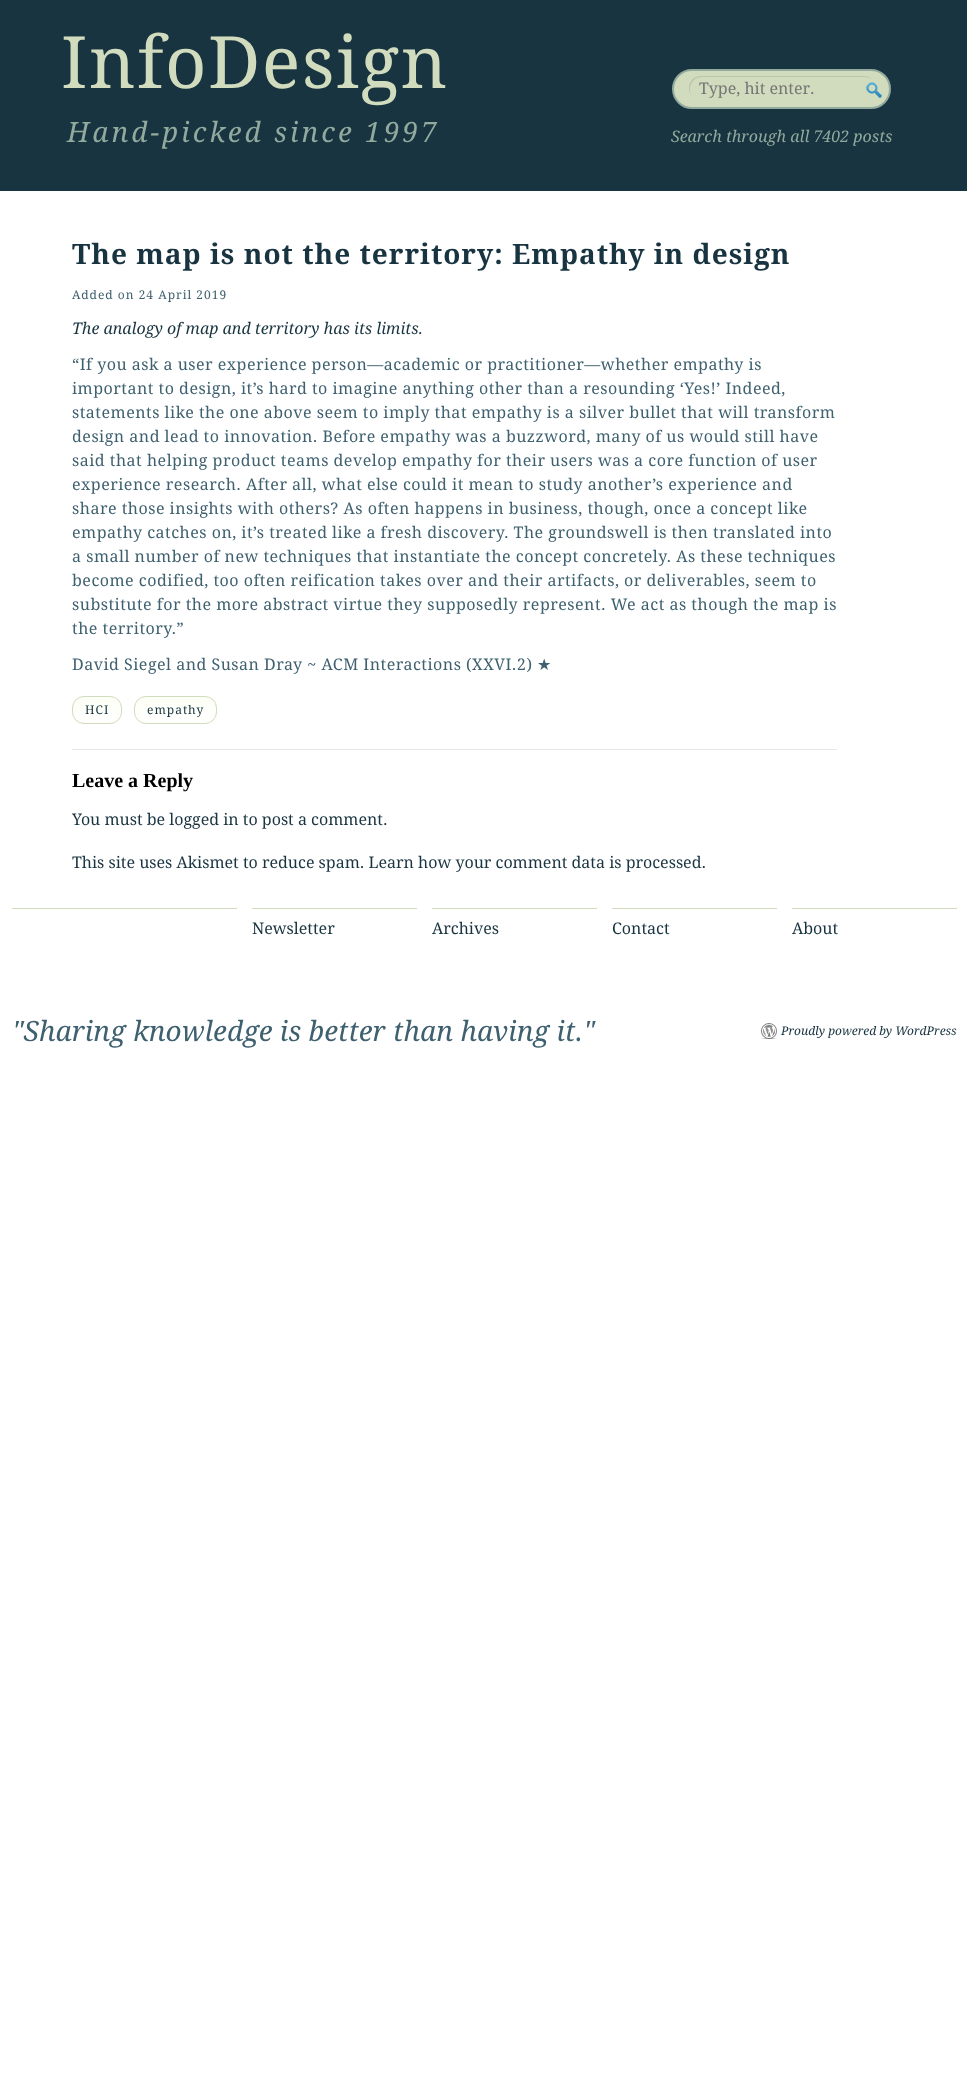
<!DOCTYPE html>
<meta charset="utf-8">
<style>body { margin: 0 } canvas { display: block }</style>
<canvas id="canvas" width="967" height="2076"></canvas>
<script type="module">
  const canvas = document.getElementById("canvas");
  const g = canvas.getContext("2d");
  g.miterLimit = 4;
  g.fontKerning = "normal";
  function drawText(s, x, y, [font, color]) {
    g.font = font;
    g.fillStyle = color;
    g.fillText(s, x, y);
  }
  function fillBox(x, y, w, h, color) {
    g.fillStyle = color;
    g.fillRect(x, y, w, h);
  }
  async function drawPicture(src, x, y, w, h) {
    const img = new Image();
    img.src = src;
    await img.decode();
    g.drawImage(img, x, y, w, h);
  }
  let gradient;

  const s1 = ["72px Droid Serif", "#D1DBBD"];
  const s2 = ["italic 28px Droid Serif", "#91AA9D"];
  const s3 = ["16px Droid Serif", "#757575"];
  const s4 = ["italic 16px Droid Serif", "#91AA9D"];
  const s5 = ["bold 28px Droid Serif", "#193441"];
  const s6 = ["12px Droid Serif", "#3E606F"];
  const s7 = ["italic 16px Droid Serif", "#193441"];
  const s8 = ["16px Droid Serif", "#3E606F"];
  const s9 = ["16px DejaVu Sans", "#3E606F"];
  const s10 = ["12px Droid Serif", "#193441"];
  const s11 = ["bold 20px Liberation Serif", "#000000"];
  const s12 = ["16px Droid Serif", "#193441"];
  const s13 = ["italic 28px Droid Serif", "#3E606F"];
  const s14 = ["italic 12px Droid Serif", "#193441"];

  fillBox(0, 0, 967, 2076, "#FFFFFF");
  fillBox(0, 0, 967, 191, "#193441");
  g.letterSpacing = "1.5px";
  drawText("InfoDesign", 61, 88, s1);
  g.letterSpacing = "3px";
  drawText("Hand-picked since 1997", 67, 142, s2);
  g.fillStyle = "#D1DBBD";
  g.beginPath();
  g.roundRect(673, 70, 217, 38, 19);
  g.fill();
  g.strokeStyle = "#91AA9D";
  g.lineWidth = 2;
  g.stroke();
  g.fillStyle = "#BCC5AA";
  g.beginPath();
  g.moveTo(702, 77);
  g.lineTo(865, 77);
  g.bezierCurveTo(868, 77, 870, 78, 872, 79);
  g.bezierCurveTo(870, 77, 867, 76, 864, 76);
  g.lineTo(701, 76);
  g.bezierCurveTo(694, 76, 689, 81, 689, 88);
  g.bezierCurveTo(689, 91, 690, 94, 692, 96);
  g.bezierCurveTo(687, 88, 692, 77, 702, 77);
  g.closePath();
  g.fill();
  g.letterSpacing = "0px";
  drawText("Type, hit enter.", 699, 94, s3);
  await drawPicture("pic1.png", 866, 82, 16, 16);
  drawText("Search through all 7402 posts", 671, 142, s4);
  g.letterSpacing = "1px";
  drawText("The map is not the territory: Empathy in design", 72, 264, s5);
  drawText("Added on 24 April 2019", 72, 299, s6);
  g.letterSpacing = "0px";
  drawText("The analogy of map and territory has its limits.", 72, 334, s7);
  g.letterSpacing = "0.5px";
  drawText("“If you ask a user experience person—academic or practitioner—whether empathy is", 72, 370, s8);
  drawText("important to design, it’s hard to imagine anything other than a resounding ‘Yes!’ Indeed,", 72, 394, s8);
  drawText("statements like the one above seem to imply that empathy is a silver bullet that will transform", 72, 418, s8);
  drawText("design and lead to innovation. Before empathy was a buzzword, many of us would still have", 72, 442, s8);
  drawText("said that helping product teams develop empathy for their users was a core function of user", 72, 466, s8);
  drawText("experience research. After all, what else could it mean to study another’s experience and", 72, 490, s8);
  drawText("share those insights with others? As often happens in business, though, once a concept like", 72, 514, s8);
  drawText("empathy catches on, it’s treated like a fresh discovery. The groundswell is then translated into", 72, 538, s8);
  drawText("a small number of new techniques that instantiate the concept concretely. As these techniques", 72, 562, s8);
  drawText("become codified, too often reification takes over and their artifacts, or deliverables, seem to", 72, 586, s8);
  drawText("substitute for the more abstract virtue they supposedly represent. We act as though the map is", 72, 610, s8);
  drawText("the territory.”", 72, 634, s8);
  drawText("David Siegel and Susan Dray ~ ACM Interactions (XXVI.2)", 72, 670, s8);
  drawText("★", 537, 670, s9);
  g.save();
  g.beginPath();
  g.roundRect(72, 696, 50, 28, 12);
  g.clip();
  gradient = g.createLinearGradient(73, 697, 73, 723);
  gradient.addColorStop(0, "#FCFFF5");
  gradient.addColorStop(1, "#FFFFFF");
  g.fillStyle = gradient;
  g.fillRect(72, 697, 50, 26);
  g.restore();
  g.beginPath();
  g.roundRect(72.5, 696.5, 49, 27, 11.5);
  g.strokeStyle = "#D1DBBD";
  g.lineWidth = 1;
  g.stroke();
  g.letterSpacing = "1px";
  drawText("HCI", 85, 714, s10);
  g.save();
  g.beginPath();
  g.roundRect(134, 696, 83, 28, 12);
  g.clip();
  gradient = g.createLinearGradient(135, 697, 135, 723);
  gradient.addColorStop(0, "#FCFFF5");
  gradient.addColorStop(1, "#FFFFFF");
  g.fillStyle = gradient;
  g.fillRect(134, 697, 83, 26);
  g.restore();
  g.beginPath();
  g.roundRect(134.5, 696.5, 82, 27, 11.5);
  g.stroke();
  drawText("empathy", 147, 714, s10);
  fillBox(72, 749, 765, 1, "#E7E7E7");
  g.letterSpacing = "0px";
  drawText("Leave a Reply", 72, 787, s11);
  drawText("You must be logged in to post a comment.", 72, 825, s12);
  drawText("This site uses Akismet to reduce spam. Learn how your comment data is processed.", 72, 868, s12);
  fillBox(12, 908, 225, 1, "#D1DBBD");
  fillBox(252, 908, 165, 1, "#D1DBBD");
  drawText("Newsletter", 252, 934, s12);
  fillBox(432, 908, 165, 1, "#D1DBBD");
  drawText("Archives", 432, 934, s12);
  fillBox(612, 908, 165, 1, "#D1DBBD");
  drawText("Contact", 612, 934, s12);
  fillBox(792, 908, 165, 1, "#D1DBBD");
  drawText("About", 792, 934, s12);
  drawText("\"Sharing knowledge is better than having it.\"", 12, 1041, s13);
  await drawPicture("pic2.png", 761, 1023, 16, 16);
  drawText("Proudly powered by WordPress", 781, 1035, s14);
</script>
